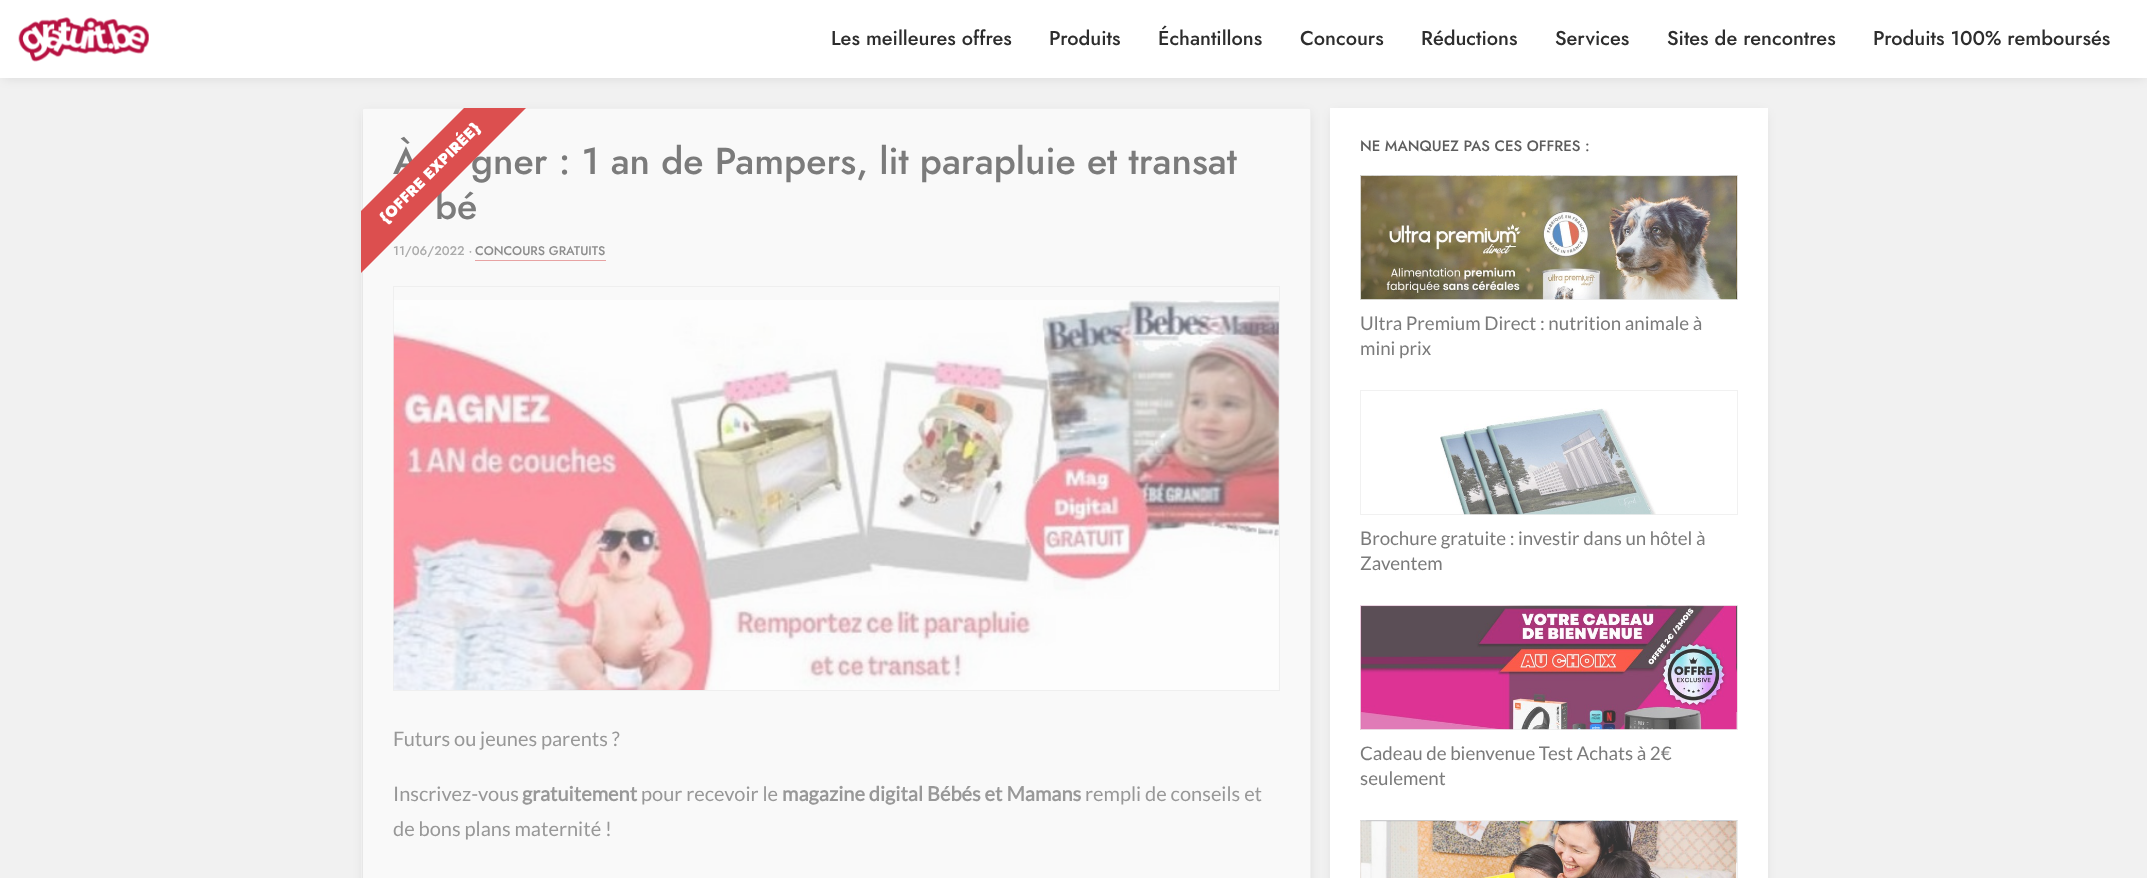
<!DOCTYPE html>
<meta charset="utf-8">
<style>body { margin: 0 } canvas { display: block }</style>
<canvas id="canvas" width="2147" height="878"></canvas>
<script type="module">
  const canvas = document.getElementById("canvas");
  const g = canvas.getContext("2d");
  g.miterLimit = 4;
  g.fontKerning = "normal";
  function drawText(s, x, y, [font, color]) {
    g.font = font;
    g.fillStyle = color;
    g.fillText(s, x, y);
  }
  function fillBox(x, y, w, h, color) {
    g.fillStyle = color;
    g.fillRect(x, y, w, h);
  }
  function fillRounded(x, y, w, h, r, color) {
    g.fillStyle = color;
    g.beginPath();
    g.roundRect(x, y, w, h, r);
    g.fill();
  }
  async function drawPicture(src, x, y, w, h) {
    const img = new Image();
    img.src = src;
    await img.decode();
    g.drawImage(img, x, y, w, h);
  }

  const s1 = ["500 20px Jost", "#2D2D2D"];
  const s2 = ["500 37.5px Jost", "#7B7B7B"];
  const s3 = ["500 12.5px Jost", "#AAAAAA"];
  const s4 = ["500 12.5px Jost", "#8D8D8D"];
  const s5 = ["20px Lato", "#989898"];
  const s6 = ["bold 20px Lato", "#989898"];
  const s7 = ["500 15px Jost", "#5D5D5D"];
  const s8 = ["18.75px Lato", "#7B7B7B"];

  fillBox(0, 0, 2147, 878, "#F1F1F1");
  g.fillStyle = "rgba(0, 0, 0, 0.1)";
  g.filter = "blur(6px)";
  g.beginPath();
  g.rect(3, 5, 2142, 73);
  g.fill();
  g.filter = "none";
  fillBox(0, 0, 2147, 78, "#FFFFFF");
  await drawPicture("pic1.png", 18, 17, 131, 45);
  drawText("Les meilleures offres", 831, 45, s1);
  drawText("Produits", 1049, 45, s1);
  drawText("Échantillons", 1158, 45, s1);
  drawText("Concours", 1300, 45, s1);
  drawText("Réductions", 1421, 45, s1);
  drawText("Services", 1555, 45, s1);
  drawText("Sites de rencontres", 1667, 45, s1);
  drawText("Produits 100% remboursés", 1873, 45, s1);
  g.fillStyle = "rgba(0, 0, 0, 0.1)";
  g.filter = "blur(6px)";
  g.beginPath();
  g.rect(364, 113, 945, 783);
  g.fill();
  g.filter = "none";
  g.beginPath();
  g.roundRect(361.5, 108.5, 949, 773, 2);
  g.strokeStyle = "#EFEFEF";
  g.stroke();
  fillRounded(363, 109, 947, 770, 1, "#F9F9F9");
  drawText("À", 393, 174, s2);
  drawText("gner : 1 an de Pampers, lit parapluie et transat", 471, 174, s2);
  drawText("bé", 435, 219, s2);
  drawText("11/06/2022 ·", 393, 255, s3);
  drawText("CONCOURS GRATUITS", 475, 255, s4);
  fillBox(475, 260, 131, 1, "#E7A3A3");
  g.save();
  g.beginPath();
  g.rect(361, 108, 950, 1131);
  g.clip();
  g.fillStyle = "#DC4F4F";
  g.beginPath();
  g.moveTo(326, 246);
  g.lineTo(503, 69);
  g.lineTo(534, 100);
  g.lineTo(357, 277);
  g.closePath();
  g.fill();
  g.restore();
  g.font = "900 15px Jost";
  g.fillStyle = "#FFFFFF";
  g.save();
  g.translate(386, 224);
  g.rotate(-45 * Math.PI / 180);
  g.fillText("{OFFRE EXPIRÉE}", 0, 0);
  g.restore();
  g.strokeRect(393.5, 286.5, 886, 404);
  await drawPicture("pic2.png", 393, 300, 886, 390);
  drawText("Futurs ou jeunes parents ?", 393, 746, s5);
  drawText("Inscrivez-vous", 393, 801, s5);
  drawText("gratuitement", 522, 801, s6);
  drawText("pour recevoir le", 641, 801, s5);
  drawText("magazine digital Bébés et Mamans", 782, 801, s6);
  drawText("rempli de conseils et", 1085, 801, s5);
  drawText("de bons plans maternité !", 393, 836, s5);
  g.fillStyle = "rgba(0, 0, 0, 0.1)";
  g.filter = "blur(6px)";
  g.beginPath();
  g.rect(1333, 113, 432, 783);
  g.fill();
  g.filter = "none";
  fillBox(1330, 108, 438, 770, "#FFFFFF");
  drawText("NE MANQUEZ PAS CES OFFRES :", 1360, 151, s7);
  await drawPicture("pic3.png", 1360, 175, 378, 125);
  g.strokeStyle = "rgba(238, 238, 238, 0.8)";
  g.strokeRect(1360.5, 175.5, 377, 124);
  drawText("Ultra Premium Direct : nutrition animale à", 1360, 330, s8);
  drawText("mini prix", 1360, 355, s8);
  await drawPicture("pic4.png", 1440, 408, 216, 107);
  g.strokeRect(1360.5, 390.5, 377, 124);
  drawText("Brochure gratuite : investir dans un hôtel à", 1360, 545, s8);
  drawText("Zaventem", 1360, 570, s8);
  await drawPicture("pic5.png", 1360, 605, 378, 125);
  g.strokeRect(1360.5, 605.5, 377, 124);
  drawText("Cadeau de bienvenue Test Achats à 2€", 1360, 760, s8);
  drawText("seulement", 1360, 785, s8);
  await drawPicture("pic6.png", 1360, 820, 378, 58);
  g.strokeRect(1360.5, 820.5, 377, 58);
</script>
